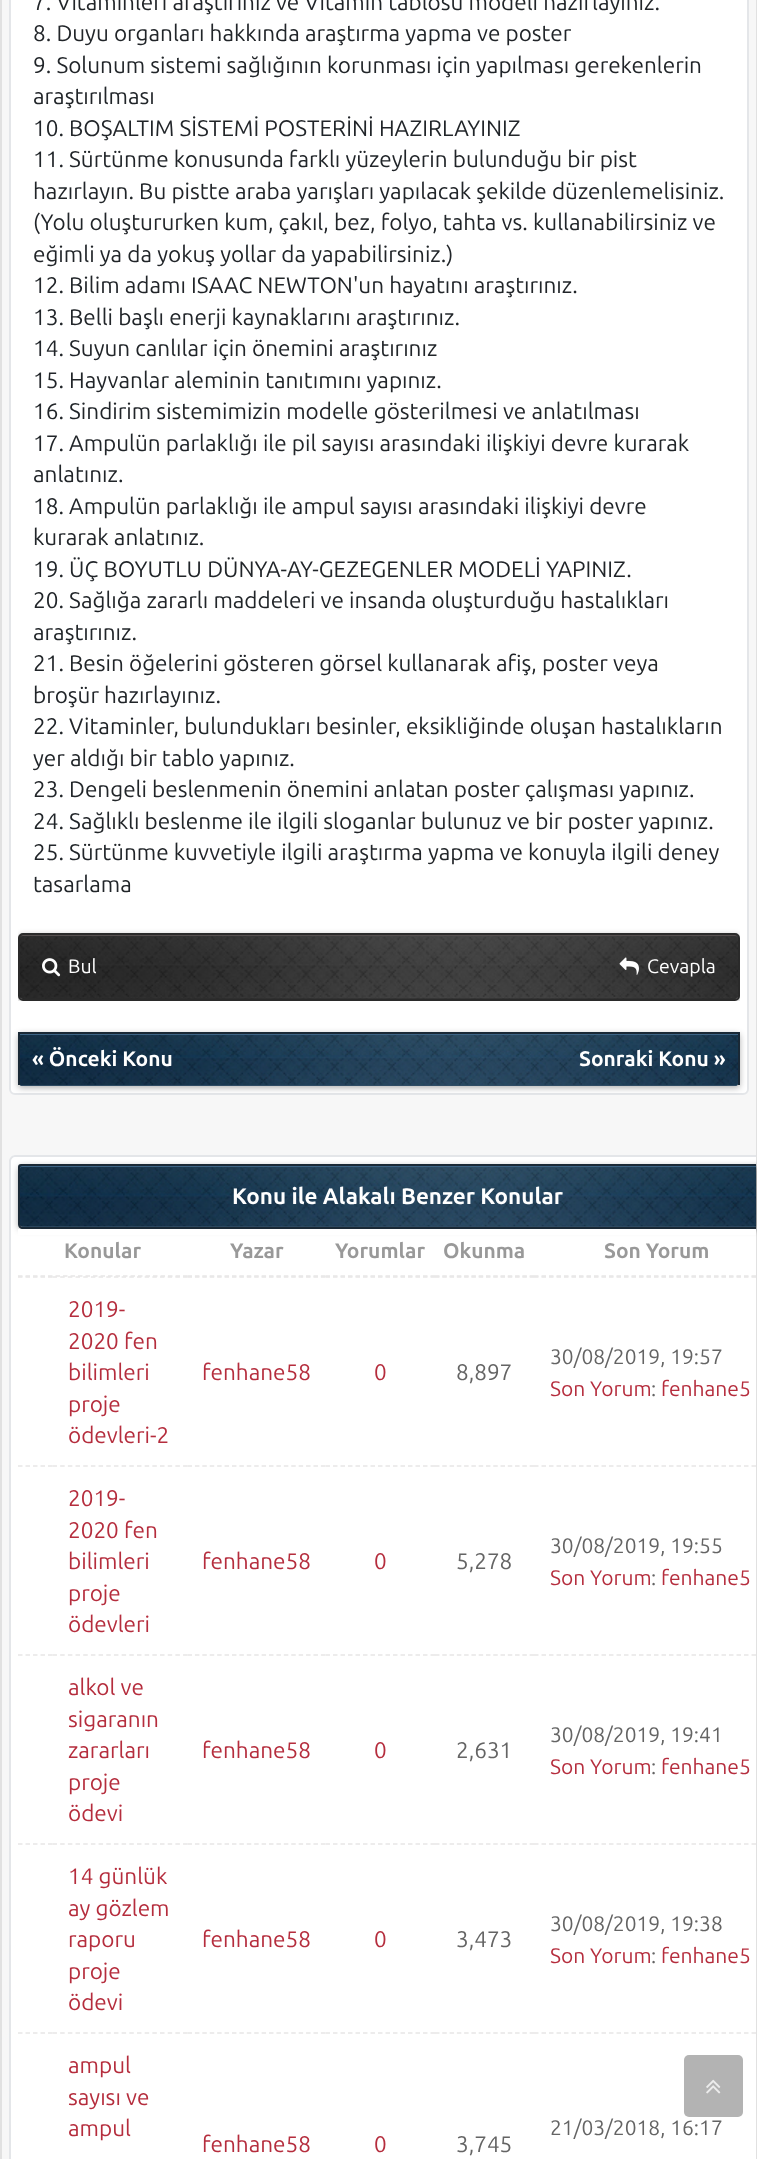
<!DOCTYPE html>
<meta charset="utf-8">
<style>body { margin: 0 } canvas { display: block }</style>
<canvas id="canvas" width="757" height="2159"></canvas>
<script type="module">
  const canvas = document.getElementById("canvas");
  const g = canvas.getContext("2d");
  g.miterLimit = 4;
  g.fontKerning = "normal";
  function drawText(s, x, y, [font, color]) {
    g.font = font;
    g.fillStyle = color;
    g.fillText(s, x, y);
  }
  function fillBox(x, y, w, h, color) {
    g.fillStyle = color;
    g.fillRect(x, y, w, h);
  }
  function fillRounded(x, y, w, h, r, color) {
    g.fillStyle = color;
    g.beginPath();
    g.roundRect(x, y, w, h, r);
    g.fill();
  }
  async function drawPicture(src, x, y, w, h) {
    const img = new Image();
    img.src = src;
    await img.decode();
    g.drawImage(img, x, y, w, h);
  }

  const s1 = ["22.5px Ubuntu", "#212529"];
  const s2 = ["19.5px Ubuntu", "#FFFFFF"];
  const s3 = ["bold 21px Ubuntu", "#FFFFFF"];
  const s4 = ["bold 22.5px Ubuntu", "#FFFFFF"];
  const s5 = ["bold 21px Ubuntu", "#999999"];
  const s6 = ["22.5px Ubuntu", "#B52D3D"];
  const s7 = ["22.5px Ubuntu", "#646464"];
  const s8 = ["21px Ubuntu", "#646464"];
  const s9 = ["21px Ubuntu", "#B52D3D"];

  fillBox(0, 0, 757, 2159, "#F7F7F7");
  g.strokeStyle = "#E1E1E1";
  g.lineWidth = 2;
  g.strokeRect(1, -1, 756, 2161);
  g.fillStyle = "#FFFFFF";
  g.beginPath();
  g.roundRect(10, -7, 738, 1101, 5);
  g.fill();
  g.strokeStyle = "#E4E6E9";
  g.stroke();
  drawText("7. Vitaminleri araştırınız ve Vitamin tablosu modeli hazırlayınız.", 33, 10, s1);
  drawText("8. Duyu organları hakkında araştırma yapma ve poster", 33, 41, s1);
  drawText("9. Solunum sistemi sağlığının korunması için yapılması gerekenlerin", 33, 73, s1);
  drawText("araştırılması", 33, 104, s1);
  drawText("10. BOŞALTIM SİSTEMİ POSTERİNİ HAZIRLAYINIZ", 33, 136, s1);
  drawText("11. Sürtünme konusunda farklı yüzeylerin bulunduğu bir pist", 33, 167, s1);
  drawText("hazırlayın. Bu pistte araba yarışları yapılacak şekilde düzenlemelisiniz.", 33, 199, s1);
  drawText("(Yolu oluştururken kum, çakıl, bez, folyo, tahta vs. kullanabilirsiniz ve", 33, 230, s1);
  drawText("eğimli ya da yokuş yollar da yapabilirsiniz.)", 33, 262, s1);
  drawText("12. Bilim adamı ISAAC NEWTON'un hayatını araştırınız.", 33, 293, s1);
  drawText("13. Belli başlı enerji kaynaklarını araştırınız.", 33, 325, s1);
  drawText("14. Suyun canlılar için önemini araştırınız", 33, 356, s1);
  drawText("15. Hayvanlar aleminin tanıtımını yapınız.", 33, 388, s1);
  drawText("16. Sindirim sistemimizin modelle gösterilmesi ve anlatılması", 33, 419, s1);
  drawText("17. Ampulün parlaklığı ile pil sayısı arasındaki ilişkiyi devre kurarak", 33, 451, s1);
  drawText("anlatınız.", 33, 482, s1);
  drawText("18. Ampulün parlaklığı ile ampul sayısı arasındaki ilişkiyi devre", 33, 514, s1);
  drawText("kurarak anlatınız.", 33, 545, s1);
  drawText("19. ÜÇ BOYUTLU DÜNYA-AY-GEZEGENLER MODELİ YAPINIZ.", 33, 577, s1);
  drawText("20. Sağlığa zararlı maddeleri ve insanda oluşturduğu hastalıkları", 33, 608, s1);
  drawText("araştırınız.", 33, 640, s1);
  drawText("21. Besin öğelerini gösteren görsel kullanarak", 33, 671, s1);
  drawText("afiş, poster veya", 496, 671, s1);
  drawText("broşür hazırlayınız.", 33, 703, s1);
  drawText("22. Vitaminler, bulundukları besinler, eksikliğinde oluşan hastalıkların", 33, 734, s1);
  drawText("yer aldığı bir tablo yapınız.", 33, 766, s1);
  drawText("23. Dengeli beslenmenin önemini anlatan poster çalışması yapınız.", 33, 797, s1);
  drawText("24. Sağlıklı beslenme ile ilgili sloganlar bulunuz ve bir poster yapınız.", 33, 829, s1);
  drawText("25. Sürtünme kuvvetiyle ilgili araştırma yapma ve konuyla ilgili deney", 33, 860, s1);
  drawText("tasarlama", 33, 892, s1);
  g.save();
  g.beginPath();
  g.rect(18, 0, 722, 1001);
  g.clip();
  g.fillStyle = "rgba(0, 0, 0, 0.3)";
  g.filter = "blur(3px)";
  g.beginPath();
  g.roundRect(18, 935, 722, 67, 5);
  g.fill();
  g.filter = "none";
  g.restore();
  fillRounded(20, 935, 718, 64, 3, "#2A2A2A");
  await drawPicture("pic1.png", 20, 935, 718, 64);
  g.fillStyle = "#564F4F";
  g.beginPath();
  g.moveTo(22, 936);
  g.lineTo(735, 936);
  g.bezierCurveTo(737, 936, 738, 937, 738, 939);
  g.bezierCurveTo(738, 937, 737, 935, 735, 935);
  g.lineTo(23, 935);
  g.bezierCurveTo(21, 935, 20, 937, 20, 939);
  g.bezierCurveTo(20, 937, 21, 936, 22, 936);
  g.closePath();
  g.fill();
  g.beginPath();
  g.roundRect(19, 934, 720, 66, 4);
  g.strokeStyle = "#2A2A2A";
  g.stroke();
  await drawPicture("pic2.png", 42, 958, 19, 19);
  drawText("Bul", 68, 973, s2);
  await drawPicture("pic3.png", 619, 957, 20, 18);
  drawText("Cevapla", 647, 973, s2);
  g.fillStyle = "rgba(0, 0, 0, 0.3)";
  g.filter = "blur(3px)";
  g.beginPath();
  g.roundRect(18, 1034, 722, 54, 3);
  g.fill();
  g.filter = "none";
  g.fillStyle = "#324E66";
  g.beginPath();
  g.moveTo(20, 1034);
  g.lineTo(738, 1034);
  g.lineTo(738, 1083);
  g.bezierCurveTo(738, 1085, 737, 1086, 736, 1086);
  g.lineTo(21, 1086);
  g.bezierCurveTo(20, 1086, 20, 1085, 20, 1083);
  g.closePath();
  g.fill();
  await drawPicture("pic4.png", 20, 1035, 718, 51);
  g.fillStyle = "#3D6485";
  g.beginPath();
  g.moveTo(20, 1035);
  g.lineTo(738, 1035);
  g.lineTo(738, 1034);
  g.lineTo(20, 1034);
  g.lineTo(20, 1083);
  g.lineTo(20, 1085);
  g.lineTo(20, 1084);
  g.closePath();
  g.fill();
  fillBox(18, 1032, 722, 2, "#1A2936");
  fillBox(738, 1032, 2, 53, "#1A2936");
  fillBox(18, 1032, 2, 53, "#1A2936");
  drawText("« Önceki Konu", 32, 1066, s3);
  drawText("Sonraki Konu »", 579, 1066, s3);
  g.beginPath();
  g.moveTo(15, 1155);
  g.lineTo(756, 1155);
  g.lineTo(756, 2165);
  g.lineTo(15, 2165);
  g.bezierCurveTo(11.5, 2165, 9, 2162.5, 9, 2159);
  g.lineTo(9, 1161);
  g.bezierCurveTo(9, 1157.5, 11.5, 1155, 15, 1155);
  g.closePath();
  g.fill();
  g.fillStyle = "#E4E6E9";
  g.beginPath();
  g.moveTo(15, 1155);
  g.bezierCurveTo(12, 1155, 9, 1158, 9, 1161);
  g.lineTo(9, 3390);
  g.bezierCurveTo(9, 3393, 12, 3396, 15, 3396);
  g.lineTo(756, 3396);
  g.lineTo(756, 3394);
  g.lineTo(15, 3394);
  g.bezierCurveTo(13, 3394, 11, 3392, 11, 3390);
  g.lineTo(11, 1161);
  g.bezierCurveTo(11, 1159, 13, 1157, 15, 1157);
  g.lineTo(756, 1157);
  g.lineTo(756, 1155);
  g.closePath();
  g.fill();
  g.fillStyle = "rgba(0, 0, 0, 0.3)";
  g.filter = "blur(3px)";
  g.beginPath();
  g.roundRect(18, 1166, 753, 64, 5);
  g.fill();
  g.filter = "none";
  g.fillStyle = "#324E66";
  g.beginPath();
  g.roundRect(20, 1166, 736, 61, [1.5, 0, 0, 3]);
  g.fill();
  await drawPicture("pic5.png", 20, 1166, 736, 61);
  g.fillStyle = "#3D6485";
  g.beginPath();
  g.moveTo(21, 1167);
  g.lineTo(756, 1167);
  g.lineTo(756, 1166);
  g.lineTo(22, 1166);
  g.lineTo(20, 1167);
  g.lineTo(20, 1168);
  g.closePath();
  g.fill();
  g.fillStyle = "#1A2936";
  g.beginPath();
  g.moveTo(21, 1164);
  g.bezierCurveTo(19, 1164, 18, 1165, 18, 1167);
  g.lineTo(18, 1224);
  g.bezierCurveTo(18, 1227, 20, 1229, 23, 1229);
  g.lineTo(756, 1229);
  g.lineTo(756, 1227);
  g.lineTo(23, 1227);
  g.bezierCurveTo(21, 1227, 20, 1226, 20, 1224);
  g.lineTo(20, 1167);
  g.bezierCurveTo(20, 1166, 20, 1166, 21, 1166);
  g.lineTo(756, 1166);
  g.lineTo(756, 1164);
  g.closePath();
  g.fill();
  drawText("Konu ile Alakalı Benzer Konular", 232, 1204, s4);
  fillBox(18, 1229, 738, 6, "#FFFFFF");
  g.beginPath();
  g.moveTo(18, 1276);
  g.lineTo(187.5, 1276);
  g.strokeStyle = "#E7E6E6";
  g.lineWidth = 1.5;
  g.setLineDash([4.5, 3]);
  g.stroke();
  drawText("Konular", 64, 1258, s5);
  g.beginPath();
  g.moveTo(187.5, 1276);
  g.lineTo(325.5, 1276);
  g.setLineDash([4.5, 2.91]);
  g.stroke();
  drawText("Yazar", 230, 1258, s5);
  g.beginPath();
  g.moveTo(325.5, 1276);
  g.lineTo(435, 1276);
  g.setLineDash([4.5, 3]);
  g.stroke();
  drawText("Yorumlar", 335, 1258, s5);
  g.beginPath();
  g.moveTo(435, 1276);
  g.lineTo(534, 1276);
  g.setLineDash([4.5, 2.78]);
  g.stroke();
  drawText("Okunma", 443, 1258, s5);
  g.beginPath();
  g.moveTo(534, 1276);
  g.lineTo(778.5, 1276);
  g.setLineDash([4.5, 3]);
  g.stroke();
  drawText("Son Yorum", 604, 1258, s5);
  g.beginPath();
  g.moveTo(18, 1277);
  g.lineTo(52.5, 1277);
  g.stroke();
  g.beginPath();
  g.moveTo(52.5, 1277);
  g.lineTo(187.5, 1277);
  g.setLineDash([4.5, 3.18]);
  g.stroke();
  drawText("2019-", 68, 1317, s6);
  drawText("2020 fen", 68, 1349, s6);
  drawText("bilimleri", 68, 1380, s6);
  drawText("proje", 68, 1412, s6);
  drawText("ödevleri-2", 68, 1443, s6);
  g.beginPath();
  g.moveTo(187.5, 1277);
  g.lineTo(325.5, 1277);
  g.setLineDash([4.5, 2.91]);
  g.stroke();
  drawText("fenhane58", 202, 1380, s6);
  g.beginPath();
  g.moveTo(325.5, 1277);
  g.lineTo(435, 1277);
  g.setLineDash([4.5, 3]);
  g.stroke();
  drawText("0", 374, 1380, s6);
  g.beginPath();
  g.moveTo(435, 1277);
  g.lineTo(534, 1277);
  g.setLineDash([4.5, 2.78]);
  g.stroke();
  drawText("8,897", 456, 1380, s7);
  g.beginPath();
  g.moveTo(534, 1277);
  g.lineTo(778.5, 1277);
  g.setLineDash([4.5, 3]);
  g.stroke();
  drawText("30/08/2019, 19:57", 550, 1364, s8);
  drawText("Son Yorum", 550, 1396, s9);
  drawText(":", 651, 1396, s8);
  drawText("fenhane5", 661, 1396, s9);
  g.beginPath();
  g.moveTo(18, 1466);
  g.lineTo(52.5, 1466);
  g.stroke();
  g.beginPath();
  g.moveTo(52.5, 1466);
  g.lineTo(187.5, 1466);
  g.setLineDash([4.5, 3.18]);
  g.stroke();
  drawText("2019-", 68, 1506, s6);
  drawText("2020 fen", 68, 1538, s6);
  drawText("bilimleri", 68, 1569, s6);
  drawText("proje", 68, 1601, s6);
  drawText("ödevleri", 68, 1632, s6);
  g.beginPath();
  g.moveTo(187.5, 1466);
  g.lineTo(325.5, 1466);
  g.setLineDash([4.5, 2.91]);
  g.stroke();
  drawText("fenhane58", 202, 1569, s6);
  g.beginPath();
  g.moveTo(325.5, 1466);
  g.lineTo(435, 1466);
  g.setLineDash([4.5, 3]);
  g.stroke();
  drawText("0", 374, 1569, s6);
  g.beginPath();
  g.moveTo(435, 1466);
  g.lineTo(534, 1466);
  g.setLineDash([4.5, 2.78]);
  g.stroke();
  drawText("5,278", 456, 1569, s7);
  g.beginPath();
  g.moveTo(534, 1466);
  g.lineTo(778.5, 1466);
  g.setLineDash([4.5, 3]);
  g.stroke();
  drawText("30/08/2019, 19:55", 550, 1553, s8);
  drawText("Son Yorum", 550, 1585, s9);
  drawText(":", 651, 1585, s8);
  drawText("fenhane5", 661, 1585, s9);
  g.beginPath();
  g.moveTo(18, 1655);
  g.lineTo(52.5, 1655);
  g.stroke();
  g.beginPath();
  g.moveTo(52.5, 1655);
  g.lineTo(187.5, 1655);
  g.setLineDash([4.5, 3.18]);
  g.stroke();
  drawText("alkol ve", 68, 1695, s6);
  drawText("sigaranın", 68, 1727, s6);
  drawText("zararları", 68, 1758, s6);
  drawText("proje", 68, 1790, s6);
  drawText("ödevi", 68, 1821, s6);
  g.beginPath();
  g.moveTo(187.5, 1655);
  g.lineTo(325.5, 1655);
  g.setLineDash([4.5, 2.91]);
  g.stroke();
  drawText("fenhane58", 202, 1758, s6);
  g.beginPath();
  g.moveTo(325.5, 1655);
  g.lineTo(435, 1655);
  g.setLineDash([4.5, 3]);
  g.stroke();
  drawText("0", 374, 1758, s6);
  g.beginPath();
  g.moveTo(435, 1655);
  g.lineTo(534, 1655);
  g.setLineDash([4.5, 2.78]);
  g.stroke();
  drawText("2,631", 456, 1758, s7);
  g.beginPath();
  g.moveTo(534, 1655);
  g.lineTo(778.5, 1655);
  g.setLineDash([4.5, 3]);
  g.stroke();
  drawText("30/08/2019, 19:41", 550, 1742, s8);
  drawText("Son Yorum", 550, 1774, s9);
  drawText(":", 651, 1774, s8);
  drawText("fenhane5", 661, 1774, s9);
  g.beginPath();
  g.moveTo(18, 1844);
  g.lineTo(52.5, 1844);
  g.stroke();
  g.beginPath();
  g.moveTo(52.5, 1844);
  g.lineTo(187.5, 1844);
  g.setLineDash([4.5, 3.18]);
  g.stroke();
  drawText("14 günlük", 68, 1884, s6);
  drawText("ay gözlem", 68, 1916, s6);
  drawText("raporu", 68, 1947, s6);
  drawText("proje", 68, 1979, s6);
  drawText("ödevi", 68, 2010, s6);
  g.beginPath();
  g.moveTo(187.5, 1844);
  g.lineTo(325.5, 1844);
  g.setLineDash([4.5, 2.91]);
  g.stroke();
  drawText("fenhane58", 202, 1947, s6);
  g.beginPath();
  g.moveTo(325.5, 1844);
  g.lineTo(435, 1844);
  g.setLineDash([4.5, 3]);
  g.stroke();
  drawText("0", 374, 1947, s6);
  g.beginPath();
  g.moveTo(435, 1844);
  g.lineTo(534, 1844);
  g.setLineDash([4.5, 2.78]);
  g.stroke();
  drawText("3,473", 456, 1947, s7);
  g.beginPath();
  g.moveTo(534, 1844);
  g.lineTo(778.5, 1844);
  g.setLineDash([4.5, 3]);
  g.stroke();
  drawText("30/08/2019, 19:38", 550, 1931, s8);
  drawText("Son Yorum", 550, 1963, s9);
  drawText(":", 651, 1963, s8);
  drawText("fenhane5", 661, 1963, s9);
  g.beginPath();
  g.moveTo(18, 2033);
  g.lineTo(52.5, 2033);
  g.stroke();
  g.beginPath();
  g.moveTo(52.5, 2033);
  g.lineTo(187.5, 2033);
  g.setLineDash([4.5, 3.18]);
  g.stroke();
  drawText("ampul", 68, 2073, s6);
  drawText("sayısı ve", 68, 2105, s6);
  drawText("ampul", 68, 2136, s6);
  g.beginPath();
  g.moveTo(534, 2033);
  g.lineTo(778.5, 2033);
  g.setLineDash([4.5, 3]);
  g.stroke();
  drawText("21/03/2018, 16:17", 550, 2135, s8);
  g.beginPath();
  g.moveTo(187.5, 2033);
  g.lineTo(325.5, 2033);
  g.setLineDash([4.5, 2.91]);
  g.stroke();
  drawText("fenhane58", 202, 2152, s6);
  g.beginPath();
  g.moveTo(325.5, 2033);
  g.lineTo(435, 2033);
  g.setLineDash([4.5, 3]);
  g.stroke();
  drawText("0", 374, 2152, s6);
  g.beginPath();
  g.moveTo(435, 2033);
  g.lineTo(534, 2033);
  g.setLineDash([4.5, 2.78]);
  g.stroke();
  drawText("3,745", 456, 2152, s7);
  fillRounded(684, 2055, 59, 62, 5, "#B3B3B3");
  await drawPicture("pic6.png", 706, 2079, 15, 15);
</script>
